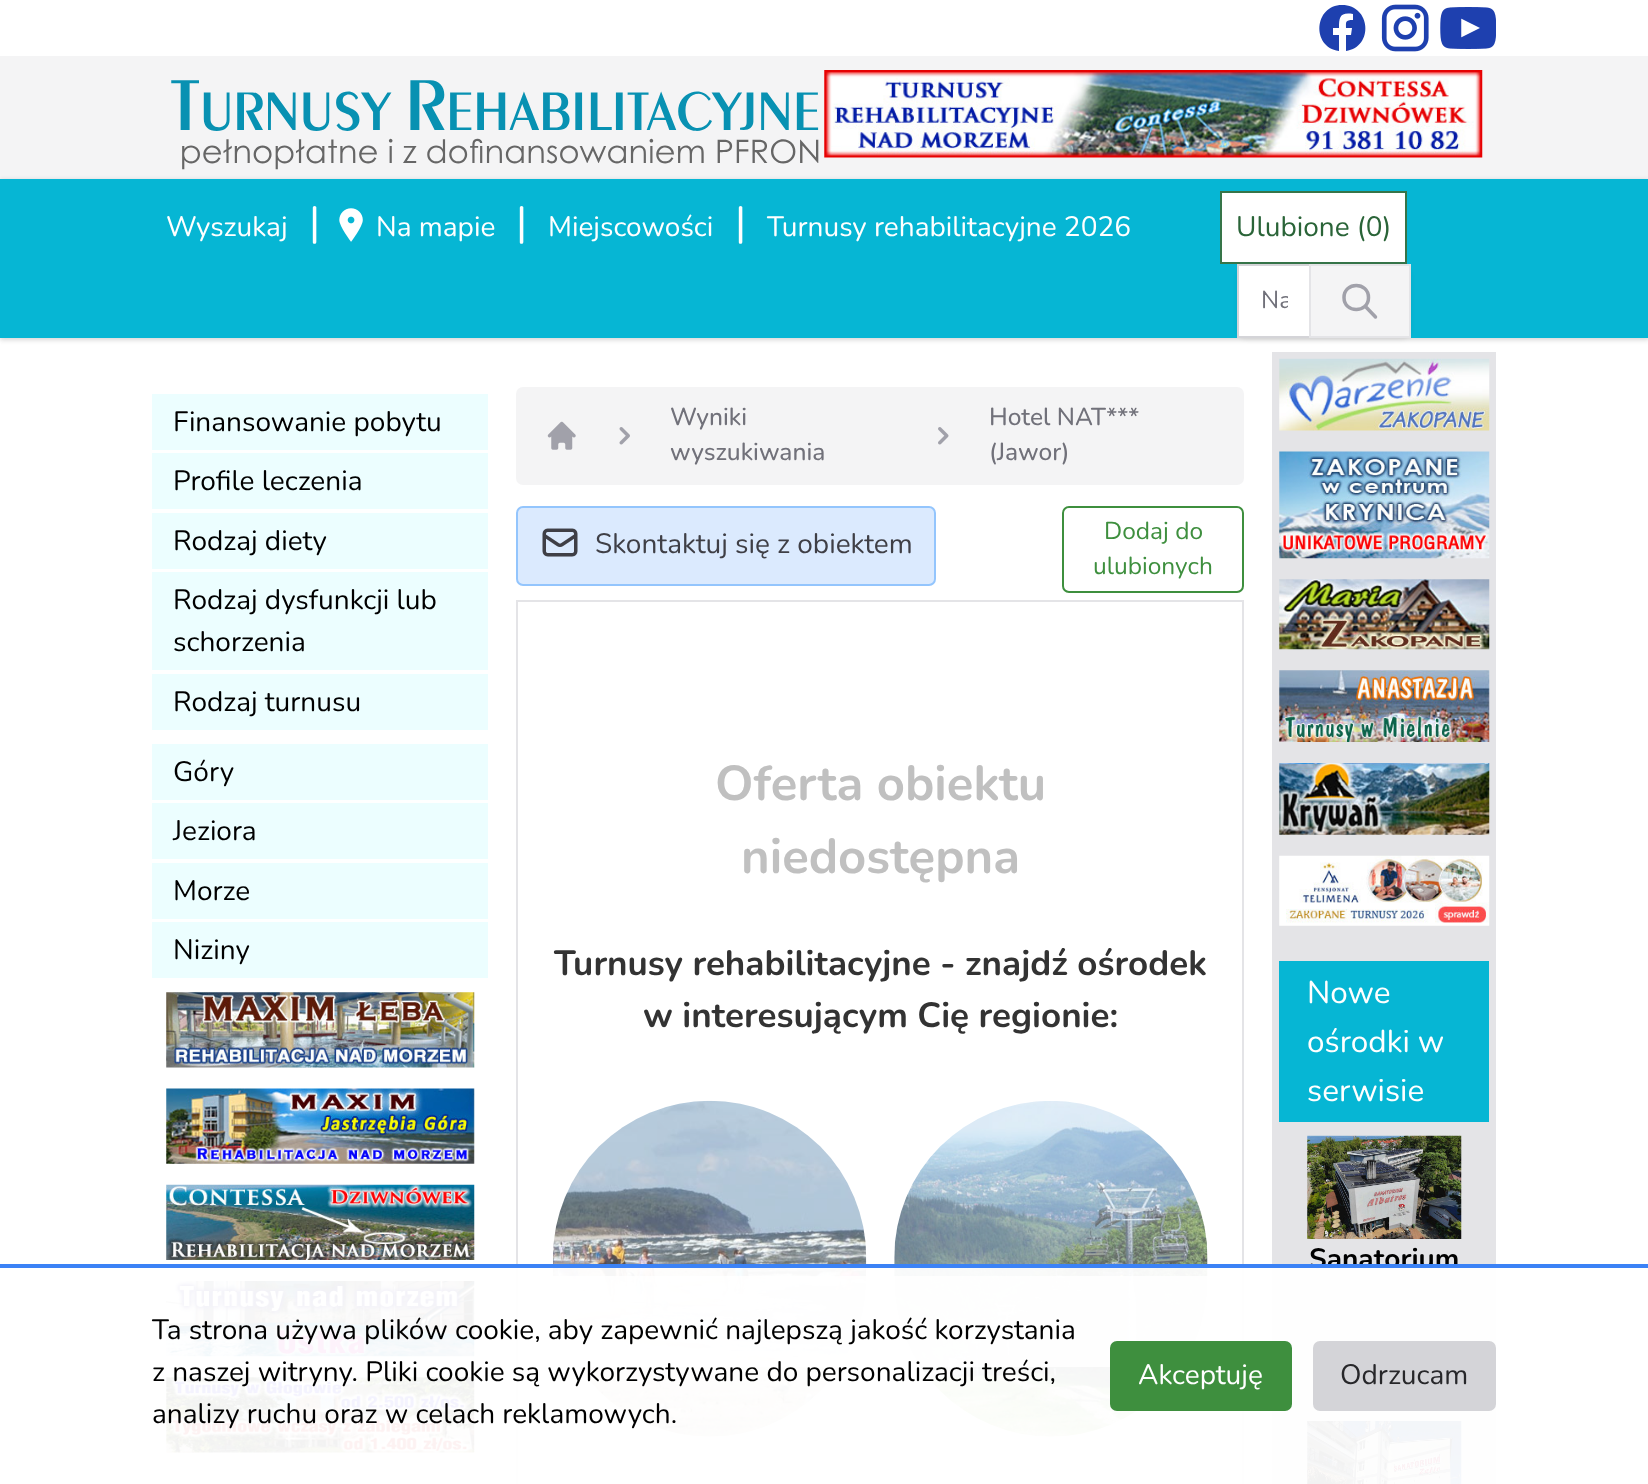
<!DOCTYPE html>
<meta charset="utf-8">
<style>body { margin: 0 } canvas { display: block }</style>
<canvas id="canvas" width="1648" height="1484"></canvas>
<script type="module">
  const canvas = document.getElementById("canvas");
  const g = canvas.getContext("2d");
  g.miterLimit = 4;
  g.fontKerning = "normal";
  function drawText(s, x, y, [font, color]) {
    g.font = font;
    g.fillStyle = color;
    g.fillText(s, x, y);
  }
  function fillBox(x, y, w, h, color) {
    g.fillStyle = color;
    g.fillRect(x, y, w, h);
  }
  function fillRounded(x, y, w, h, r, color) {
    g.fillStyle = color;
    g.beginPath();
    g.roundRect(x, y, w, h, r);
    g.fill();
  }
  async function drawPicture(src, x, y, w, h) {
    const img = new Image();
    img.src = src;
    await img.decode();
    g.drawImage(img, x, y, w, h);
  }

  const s1 = ["28px Nunito", "#FFFFFF"];
  const s2 = ["42px Nunito", "#FFFFFF"];
  const s3 = ["28px Nunito", "#2A6438"];
  const s4 = ["24.5px Nunito", "#71717A"];
  const s5 = ["28px Nunito", "#000000"];
  const s6 = ["500 24.5px Nunito", "#71717A"];
  const s7 = ["28px Nunito", "#3F3F46"];
  const s8 = ["24.5px Nunito", "#3E8F3E"];
  const s9 = ["bold 49px Nunito", "#C0C0C0"];
  const s10 = ["bold 35px Nunito", "#333333"];
  const s11 = ["31.5px Nunito", "#FFFFFF"];
  const s12 = ["bold 28px Nunito", "#000000"];
  const s13 = ["28px Nunito", "#27272A"];

  fillBox(0, 0, 1648, 1484, "#FFFFFF");
  g.fillStyle = "#1E40AF";
  g.beginPath();
  g.moveTo(1342, 5);
  g.bezierCurveTo(1314, 5, 1311, 47, 1339, 51);
  g.lineTo(1339, 35);
  g.lineTo(1333, 35);
  g.lineTo(1333, 28);
  g.lineTo(1339, 28);
  g.bezierCurveTo(1339, 17, 1340, 12, 1353, 14);
  g.lineTo(1353, 20);
  g.bezierCurveTo(1345, 20, 1346, 22, 1346, 28);
  g.lineTo(1352, 28);
  g.lineTo(1351, 35);
  g.lineTo(1346, 35);
  g.lineTo(1346, 51);
  g.bezierCurveTo(1374, 47, 1371, 5, 1342, 5);
  g.closePath();
  g.fill();
  await drawPicture("pic1.png", 1381, 4, 48, 48);
  await drawPicture("pic2.png", 1440, 7, 56, 42);
  fillBox(0, 56, 1648, 123, "#F4F4F5");
  await drawPicture("pic3.png", 171, 80, 648, 90);
  await drawPicture("pic4.png", 824, 70, 659, 88);
  g.fillStyle = "rgba(0, 0, 0, 0.06)";
  g.filter = "blur(2px)";
  g.beginPath();
  g.rect(0, 180, 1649, 160);
  g.fill();
  g.filter = "none";
  g.fillStyle = "rgba(0, 0, 0, 0.1)";
  g.filter = "blur(2.5px)";
  g.beginPath();
  g.rect(0, 180, 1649, 160);
  g.fill();
  g.filter = "none";
  fillBox(0, 179, 1648, 159, "#06B6D4");
  drawText("Wyszukaj", 166, 236, s1);
  drawText("|", 309, 236, s2);
  await drawPicture("pic5.png", 339, 208, 24, 34);
  drawText("Na mapie", 376, 236, s1);
  drawText("|", 516, 236, s2);
  drawText("Miejscowości", 548, 236, s1);
  drawText("|", 735, 236, s2);
  drawText("Turnusy rehabilitacyjne 2026", 767, 236, s1);
  g.beginPath();
  g.rect(1221, 192, 185, 71);
  g.fill();
  g.strokeStyle = "#367549";
  g.lineWidth = 2;
  g.stroke();
  drawText("Ulubione (0)", 1236, 236, s3);
  g.fillStyle = "rgba(0, 0, 0, 0.05)";
  g.filter = "blur(2px)";
  g.beginPath();
  g.roundRect(1237, 266, 174, 74, 11);
  g.fill();
  g.filter = "none";
  g.fillStyle = "#FFFFFF";
  g.beginPath();
  g.rect(1238, 265, 72, 72);
  g.fill();
  g.strokeStyle = "#D4D4D8";
  g.stroke();
  g.save();
  g.beginPath();
  g.rect(1260, 284, 28, 33);
  g.clip();
  drawText("Na", 1261, 308, s4);
  g.restore();
  g.fillStyle = "#F4F4F5";
  g.beginPath();
  g.rect(1310, 265, 100, 72);
  g.fill();
  g.strokeStyle = "#E4E4E7";
  g.stroke();
  g.beginPath();
  g.moveTo(1375.5, 317);
  g.lineTo(1365, 306);
  g.moveTo(1368.5, 297.5);
  g.bezierCurveTo(1368.5, 313.5, 1344, 313.5, 1344, 297.5);
  g.bezierCurveTo(1344, 281.5, 1368.5, 281.5, 1368.5, 297.5);
  g.closePath();
  g.strokeStyle = "#A1A1AA";
  g.lineWidth = 3.5;
  g.lineCap = "round";
  g.lineJoin = "round";
  g.stroke();
  fillBox(152, 394, 336, 56, "#ECFEFF");
  drawText("Finansowanie pobytu", 173, 431, s5);
  fillBox(152, 453, 336, 56, "#ECFEFF");
  drawText("Profile leczenia", 173, 490, s5);
  fillBox(152, 513, 336, 56, "#ECFEFF");
  drawText("Rodzaj diety", 173, 550, s5);
  fillBox(152, 572, 336, 98, "#ECFEFF");
  drawText("Rodzaj dysfunkcji lub", 173, 609, s5);
  drawText("schorzenia", 173, 651, s5);
  fillBox(152, 674, 336, 56, "#ECFEFF");
  drawText("Rodzaj turnusu", 173, 711, s5);
  fillBox(152, 744, 336, 56, "#ECFEFF");
  drawText("Góry", 173, 781, s5);
  fillBox(152, 803, 336, 56, "#ECFEFF");
  drawText("Jeziora", 173, 840, s5);
  fillBox(152, 863, 336, 56, "#ECFEFF");
  drawText("Morze", 173, 900, s5);
  fillBox(152, 922, 336, 56, "#ECFEFF");
  drawText("Niziny", 173, 959, s5);
  await drawPicture("pic6.png", 166, 992, 309, 76);
  await drawPicture("pic7.png", 166, 1088, 309, 76);
  await drawPicture("pic8.png", 166, 1184, 309, 76);
  await drawPicture("pic9.png", 166, 1281, 309, 76);
  await drawPicture("pic10.png", 166, 1377, 309, 76);
  fillRounded(516, 387, 728, 98, 7, "#F4F4F5");
  await drawPicture("pic11.png", 547, 421, 29, 29);
  await drawPicture("pic12.png", 619, 427, 11, 18);
  drawText("Wyniki", 670, 425, s6);
  drawText("wyszukiwania", 670, 460, s6);
  await drawPicture("pic13.png", 938, 427, 11, 18);
  drawText("Hotel NAT***", 989, 425, s6);
  drawText("(Jawor)", 989, 460, s6);
  g.fillStyle = "#DBEAFE";
  g.beginPath();
  g.roundRect(517, 507, 418, 78, 6);
  g.fill();
  g.strokeStyle = "#93C5FD";
  g.lineWidth = 2;
  g.lineJoin = "miter";
  g.stroke();
  await drawPicture("pic14.png", 542, 528, 36, 29);
  drawText("Skontaktuj się z obiektem", 595, 553, s7);
  g.beginPath();
  g.roundRect(1063, 507, 180, 85, 6);
  g.strokeStyle = "#3E8F3E";
  g.stroke();
  drawText("Dodaj do", 1104, 539, s8);
  drawText("ulubionych", 1093, 574, s8);
  g.strokeStyle = "#E4E4E7";
  g.strokeRect(517, 601, 726, 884);
  drawText("Oferta obiektu", 715, 800, s9);
  drawText("niedostępna", 741, 873, s9);
  drawText("Turnusy rehabilitacyjne - znajdź ośrodek", 554, 975, s10);
  drawText("w interesującym Cię regionie:", 643, 1027, s10);
  await drawPicture("pic15.png", 553, 1100, 314, 337);
  fillBox(553, 1276, 314, 91, "rgba(255, 255, 255, 0.8)");
  await drawPicture("pic16.png", 894, 1101, 314, 336);
  fillBox(894, 1276, 314, 91, "rgba(255, 255, 255, 0.8)");
  fillBox(1272, 352, 224, 1132, "#E4E4E7");
  await drawPicture("pic17.png", 1279, 358, 211, 73);
  await drawPicture("pic18.png", 1279, 451, 211, 108);
  await drawPicture("pic19.png", 1279, 579, 211, 71);
  await drawPicture("pic20.png", 1279, 670, 211, 72);
  await drawPicture("pic21.png", 1279, 763, 211, 72);
  await drawPicture("pic22.png", 1279, 855, 211, 71);
  fillBox(1279, 961, 210, 161, "#06B6D4");
  drawText("Nowe", 1307, 1003, s11);
  drawText("ośrodki w", 1307, 1052, s11);
  drawText("serwisie", 1307, 1101, s11);
  await drawPicture("pic23.png", 1307, 1135, 155, 104);
  drawText("Sanatorium", 1309, 1268, s12);
  await drawPicture("pic24.png", 1307, 1421, 155, 63);
  fillBox(166, 1268, 1330, 216, "rgba(255, 255, 255, 0.95)");
  fillBox(0, 1264, 1648, 4, "#3B82F6");
  drawText("Ta strona używa plików cookie, aby zapewnić najlepszą jakość korzystania", 152, 1339, s5);
  drawText("z naszej witryny. Pliki cookie są wykorzystywane do personalizacji treści,", 152, 1381, s5);
  drawText("analizy ruchu oraz w celach reklamowych.", 152, 1423, s5);
  fillRounded(1110, 1341, 182, 70, 7, "#3E8F3E");
  drawText("Akceptuję", 1138, 1384, s1);
  fillRounded(1313, 1341, 183, 70, 7, "#D4D4D8");
  drawText("Odrzucam", 1340, 1384, s13);
</script>
